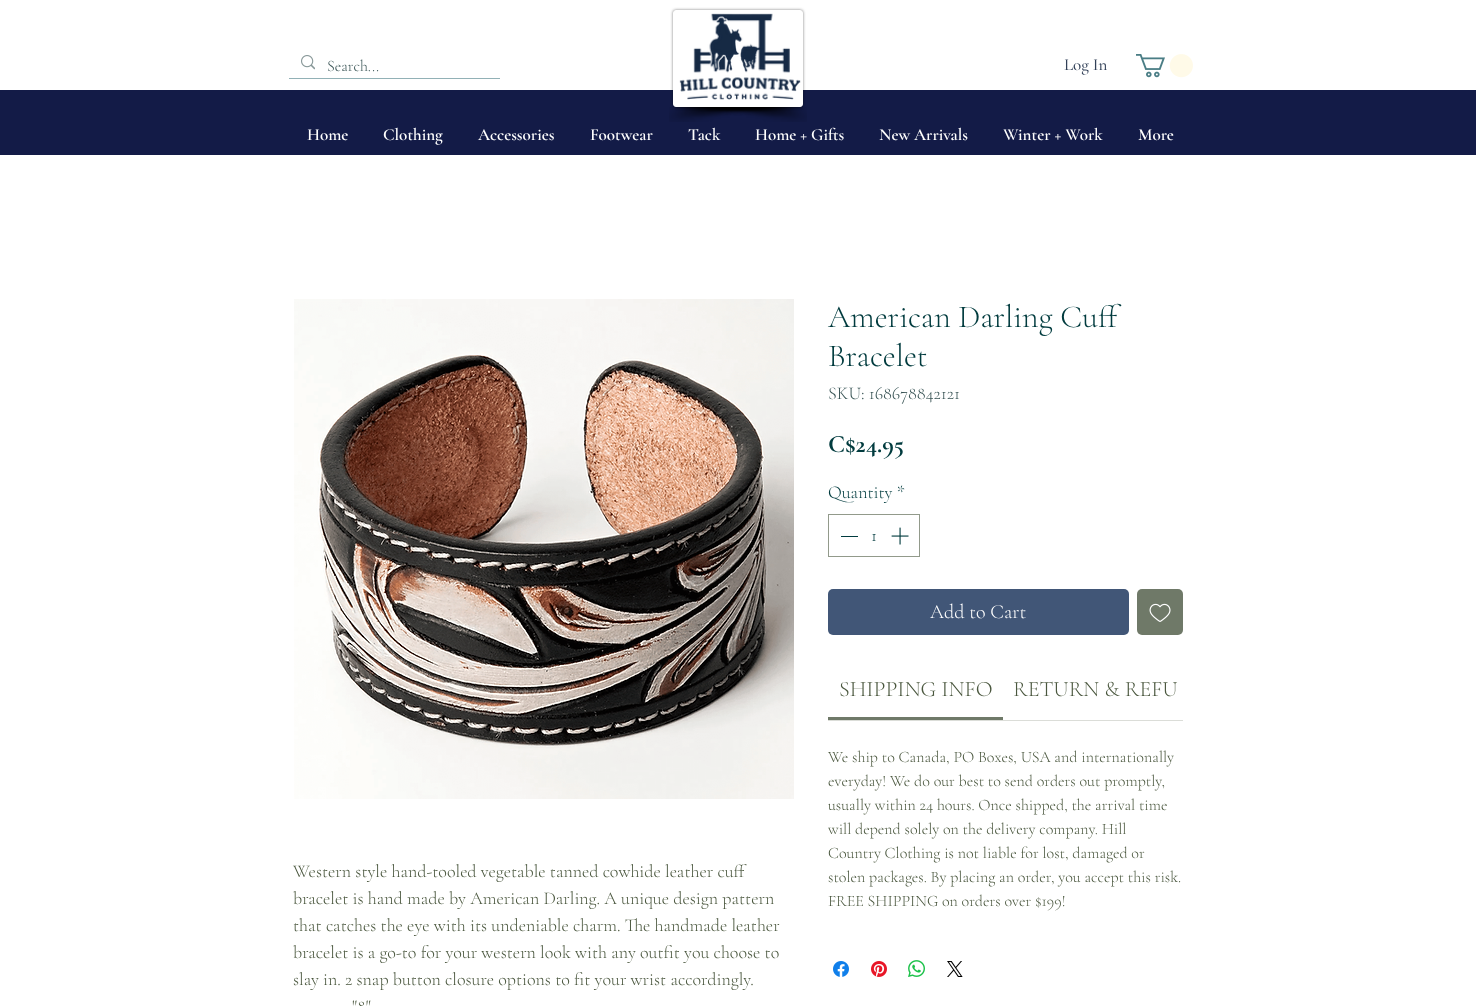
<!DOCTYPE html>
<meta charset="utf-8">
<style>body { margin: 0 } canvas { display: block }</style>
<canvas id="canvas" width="1476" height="1006"></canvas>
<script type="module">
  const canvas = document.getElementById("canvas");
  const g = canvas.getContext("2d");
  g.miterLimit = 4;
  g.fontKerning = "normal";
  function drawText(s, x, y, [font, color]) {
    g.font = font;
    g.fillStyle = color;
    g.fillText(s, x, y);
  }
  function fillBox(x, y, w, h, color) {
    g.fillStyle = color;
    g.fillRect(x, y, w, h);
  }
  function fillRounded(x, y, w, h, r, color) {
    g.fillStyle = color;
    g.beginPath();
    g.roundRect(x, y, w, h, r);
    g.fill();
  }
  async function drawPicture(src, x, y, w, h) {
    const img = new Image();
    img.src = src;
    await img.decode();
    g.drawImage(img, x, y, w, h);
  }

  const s1 = ["300 16px Cormorant Garamond", "#385354"];
  const s2 = ["500 17px Cormorant Garamond", "#324158"];
  const s3 = ["600 17px Cormorant Garamond", "#FFFFFF"];
  const s4 = ["300 32px Cormorant Garamond", "#013B3E"];
  const s5 = ["300 18px Cormorant Garamond", "#385354"];
  const s6 = ["bold 25px Cormorant Garamond", "#013B3E"];
  const s7 = ["300 18px Cormorant Garamond", "#013B3E"];
  const s8 = ["300 20px Cormorant Garamond", "#FFFFFF"];
  const s9 = ["300 22px Cormorant Garamond", "#4A573E"];
  const s10 = ["300 16px Cormorant Garamond", "#4A573E"];
  const s11 = ["300 18px Cormorant Garamond", "#4A573E"];

  fillBox(0, 0, 1476, 1006, "#FFFFFF");
  fillBox(289, 78, 211, 1, "#92B1B6");
  await drawPicture("pic1.png", 301, 55, 14, 15);
  drawText("Search...", 327, 71, s1);
  fillBox(0, 90, 1476, 65, "#131B47");
  g.fillStyle = "rgba(0, 0, 0, 0.5)";
  g.filter = "blur(1.5px)";
  g.beginPath();
  g.roundRect(673, 10, 130, 97, 3);
  g.fill();
  g.filter = "none";
  g.fillStyle = "#FFFFFF";
  g.beginPath();
  g.roundRect(673.5, 10.5, 129, 96, 2.5);
  g.fill();
  g.strokeStyle = "#FFFFFF";
  g.stroke();
  await drawPicture("pic2.png", 679, 13, 122, 87);
  await drawPicture("pic3.png", 669, 107, 134, 15);
  await drawPicture("pic4.png", 675, 107, 132, 15);
  drawText("Log In", 1064, 70, s2);
  await drawPicture("pic5.png", 1136, 54, 57, 24);
  drawText("Home", 307, 140, s3);
  drawText("Clothing", 383, 140, s3);
  drawText("Accessories", 478, 140, s3);
  drawText("Footwear", 590, 140, s3);
  drawText("Tack", 688, 140, s3);
  drawText("Home + Gifts", 755, 140, s3);
  drawText("New Arrivals", 879, 140, s3);
  drawText("Winter + Work", 1003, 140, s3);
  drawText("More", 1138, 140, s3);
  drawText("American Darling Cuff", 828, 327, s4);
  drawText("Bracelet", 828, 366, s4);
  drawText("SKU: 168678842121", 828, 399, s5);
  drawText("C$24.95", 828, 452, s6);
  drawText("Quantity *", 828, 498, s7);
  g.strokeStyle = "#929A8B";
  g.strokeRect(828.5, 514.5, 91, 42);
  fillBox(841, 536, 17, 1, "#013B3E");
  drawText("1", 871, 541, s7);
  await drawPicture("pic6.png", 891, 527, 18, 18);
  fillRounded(828, 589, 301, 46, 5, "#415677");
  drawText("Add to Cart", 930, 618, s8);
  fillRounded(1137, 589, 46, 46, 5, "#6F7968");
  await drawPicture("pic7.png", 1149, 603, 22, 19);
  fillBox(828, 720, 355, 1, "#DBDDD8");
  fillBox(828, 717, 175, 3, "#6F7968");
  drawText("SHIPPING INFO", 839, 696, s9);
  drawText("RETURN & REFU", 1013, 696, s9);
  drawText("We ship to Canada, PO Boxes, USA and internationally", 828, 762, s10);
  drawText("everyday! We do our best to send orders out promptly,", 828, 786, s10);
  drawText("usually within 24 hours. Once shipped, the arrival time", 828, 810, s10);
  drawText("will depend solely on the delivery company. Hill", 828, 834, s10);
  drawText("Country Clothing is not liable for lost, damaged or", 828, 858, s10);
  drawText("stolen packages. By placing an order, you accept this risk.", 828, 882, s10);
  drawText("FREE SHIPPING on orders over $199!", 828, 906, s10);
  await drawPicture("pic8.png", 833, 961, 16, 16);
  await drawPicture("pic9.png", 871, 961, 16, 16);
  await drawPicture("pic10.png", 908, 960, 17, 17);
  await drawPicture("pic11.png", 947, 961, 16, 16);
  await drawPicture("pic12.png", 294, 299, 500, 500);
  drawText("Western style hand-tooled vegetable tanned cowhide leather cuff", 293, 877, s11);
  drawText("bracelet is hand made by American Darling. A unique design pattern", 293, 904, s11);
  drawText("that catches the eye with its undeniable charm. The handmade leather", 293, 931, s11);
  drawText("bracelet is a go-to for your western look with any outfit you choose to", 293, 958, s11);
  drawText("slay in. 2 snap button closure options to fit your wrist accordingly.", 293, 985, s11);
  drawText("\"8\"", 352, 1012, s11);
</script>
